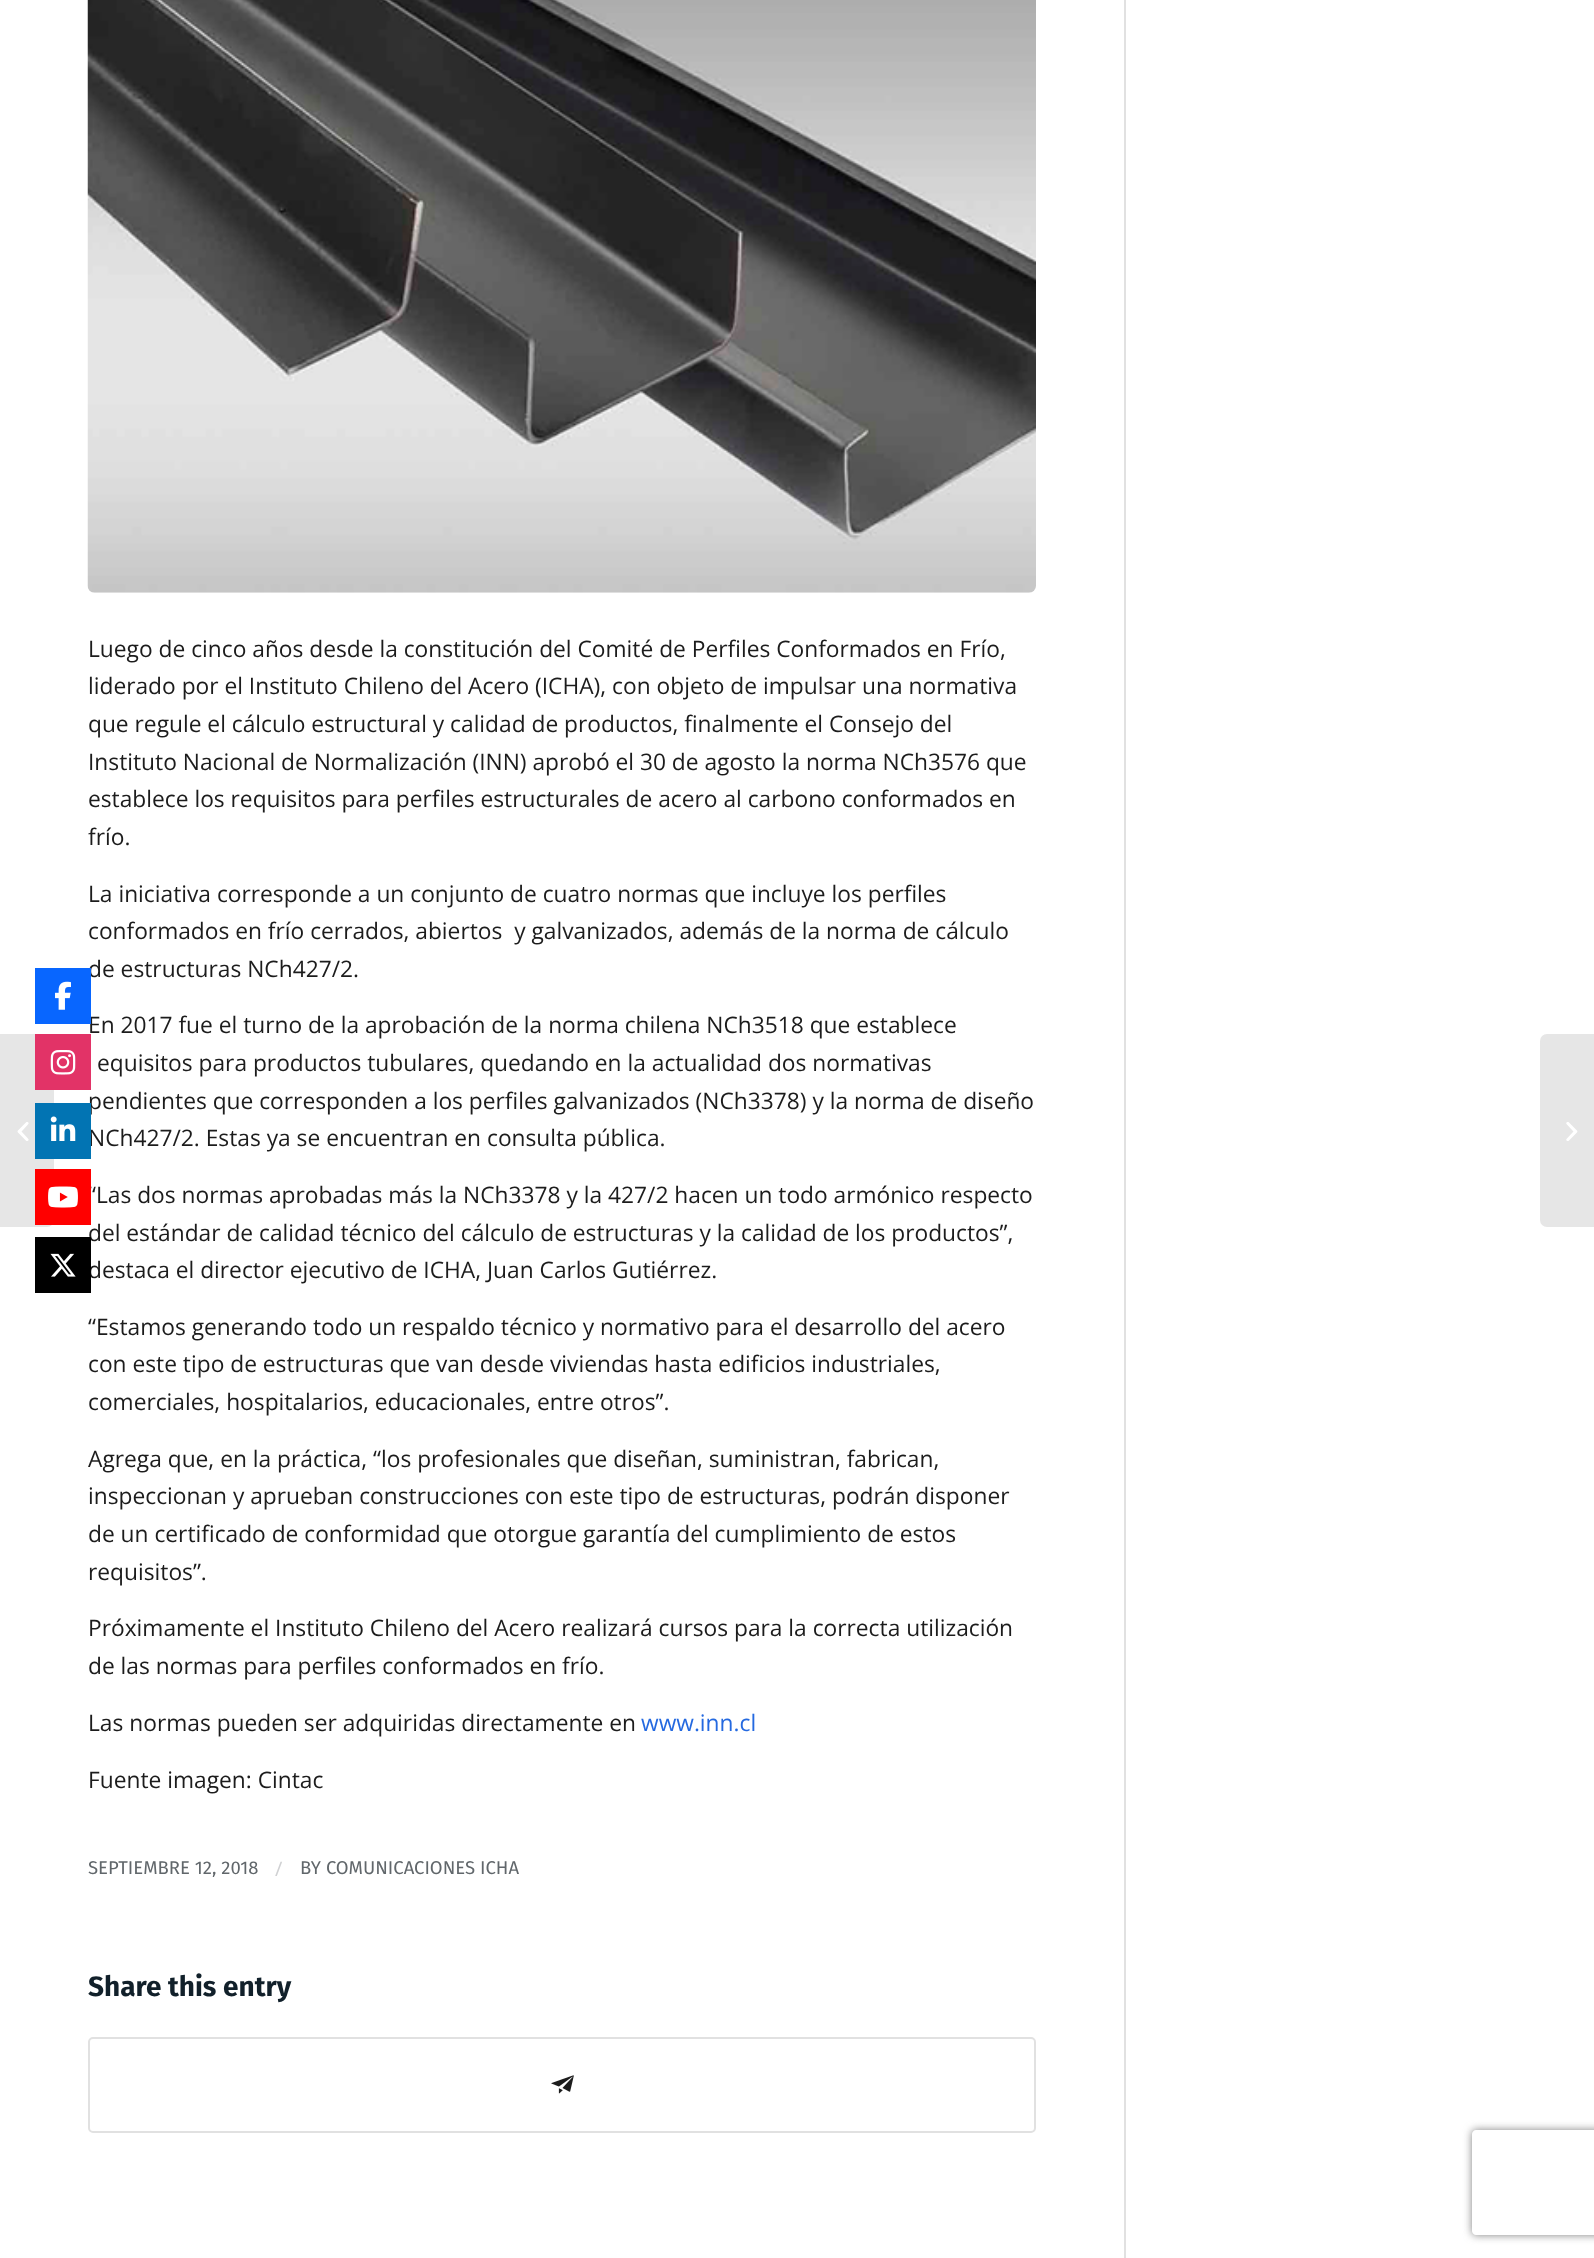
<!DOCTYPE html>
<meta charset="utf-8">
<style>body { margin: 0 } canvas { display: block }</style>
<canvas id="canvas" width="1594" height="2258"></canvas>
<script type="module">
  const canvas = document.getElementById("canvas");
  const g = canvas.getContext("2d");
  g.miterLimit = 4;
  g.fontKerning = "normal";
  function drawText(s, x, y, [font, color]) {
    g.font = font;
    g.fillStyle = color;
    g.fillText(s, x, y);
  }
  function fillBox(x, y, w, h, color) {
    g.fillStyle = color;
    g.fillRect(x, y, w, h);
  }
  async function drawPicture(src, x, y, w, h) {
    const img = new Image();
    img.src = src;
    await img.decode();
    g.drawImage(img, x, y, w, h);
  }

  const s1 = ["22.75px Open Sans", "#1C1C1C"];
  const s2 = ["22.75px Open Sans", "#2469E0"];
  const s3 = ["18.5px Fira Sans", "#61676B"];
  const s4 = ["20px Open Sans", "#D0D1D3"];
  const s5 = ["bold 28px Fira Sans", "#11202A"];

  fillBox(0, 0, 1594, 2258, "#FFFFFF");
  drawText("de estructuras NCh427/2.", 88, 977, s1);
  drawText("En 2017 fue el turno de la aprobación de la norma chilena NCh3518 que establece", 88, 1033, s1);
  fillBox(35, 968, 56, 56, "#0866FF");
  await drawPicture("pic1.png", 55, 981, 16, 29);
  g.fillStyle = "#E6E6E6";
  g.beginPath();
  g.roundRect(0, 1034, 54, 193, [0, 7, 7, 0]);
  g.fill();
  fillBox(35, 1034, 56, 56, "#E23367");
  await drawPicture("pic2.png", 50, 1050, 26, 25);
  drawText("pendientes que corresponden a los perfiles galvanizados (NCh3378) y la norma de diseño", 88, 1109, s1);
  drawText("NCh427/2. Estas ya se encuentran en consulta pública.", 88, 1146, s1);
  fillBox(35, 1103, 56, 56, "#0274B3");
  await drawPicture("pic3.png", 50, 1116, 26, 25);
  drawText("“Las dos normas aprobadas más la NCh3378 y la 427/2 hacen un todo armónico respecto", 88, 1203, s1);
  drawText("del estándar de calidad técnico del cálculo de estructuras y la calidad de los productos”,", 88, 1241, s1);
  fillBox(35, 1169, 56, 56, "#FF0000");
  await drawPicture("pic4.png", 48, 1186, 30, 22);
  drawText("destaca el director ejecutivo de ICHA, Juan Carlos Gutiérrez.", 88, 1278, s1);
  fillBox(35, 1237, 56, 56, "#000000");
  await drawPicture("pic5.png", 50, 1253, 26, 24);
  await drawPicture("pic6.png", 17, 1122, 12, 19);
  fillBox(1124, 0, 2, 2258, "#E1E1E1");
  await drawPicture("pic7.png", 87, 0, 949, 593);
  drawText("Luego de cinco años desde la constitución del Comité de Perfiles Conformados en Frío,", 88, 657, s1);
  drawText("liderado por el Instituto Chileno del Acero (ICHA), con objeto de impulsar una normativa", 88, 694, s1);
  drawText("que regule el cálculo estructural y calidad de productos, finalmente el Consejo del", 88, 732, s1);
  drawText("Instituto Nacional de Normalización (INN) aprobó el 30 de agosto la norma NCh3576 que", 88, 770, s1);
  drawText("establece los requisitos para perfiles estructurales de acero al carbono conformados en", 88, 807, s1);
  drawText("frío.", 88, 845, s1);
  drawText("La iniciativa corresponde a un conjunto de cuatro normas que incluye los perfiles", 88, 902, s1);
  drawText("conformados en frío cerrados, abiertos  y galvanizados, además de la norma de cálculo", 88, 939, s1);
  drawText("equisitos para productos tubulares, quedando en la actualidad dos normativas", 97, 1071, s1);
  drawText("“Estamos generando todo un respaldo técnico y normativo para el desarrollo del acero", 88, 1335, s1);
  drawText("con este tipo de estructuras que van desde viviendas hasta edificios industriales,", 88, 1372, s1);
  drawText("comerciales, hospitalarios, educacionales, entre otros”.", 88, 1410, s1);
  drawText("Agrega que, en la práctica, “los profesionales que diseñan, suministran, fabrican,", 88, 1467, s1);
  drawText("inspeccionan y aprueban construcciones con este tipo de estructuras, podrán disponer", 88, 1504, s1);
  drawText("de un certificado de conformidad que otorgue garantía del cumplimiento de estos", 88, 1542, s1);
  drawText("requisitos”.", 88, 1580, s1);
  drawText("Próximamente el Instituto Chileno del Acero realizará cursos para la correcta utilización", 88, 1636, s1);
  drawText("de las normas para perfiles conformados en frío.", 88, 1674, s1);
  drawText("Las normas pueden ser adquiridas directamente en", 88, 1731, s1);
  drawText("www.inn.cl", 641, 1731, s2);
  drawText("Fuente imagen: Cintac", 88, 1788, s1);
  drawText("SEPTIEMBRE 12, 2018", 88, 1874, s3);
  drawText("/", 275, 1876, s4);
  drawText("BY COMUNICACIONES ICHA", 300, 1874, s3);
  drawText("Share this entry", 88, 1996, s5);
  g.beginPath();
  g.roundRect(89, 2038, 946, 94, 4);
  g.strokeStyle = "#E1E1E1";
  g.lineWidth = 2;
  g.stroke();
  await drawPicture("pic8.png", 551, 2075, 23, 19);
  g.fillStyle = "#E6E6E6";
  g.beginPath();
  g.roundRect(1540, 1034, 54, 193, [7, 0, 0, 7]);
  g.fill();
  await drawPicture("pic9.png", 1566, 1122, 12, 19);
  g.save();
  g.beginPath();
  g.moveTo(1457, 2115);
  g.lineTo(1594, 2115);
  g.lineTo(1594, 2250);
  g.lineTo(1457, 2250);
  g.closePath();
  g.moveTo(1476, 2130);
  g.lineTo(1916, 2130);
  g.bezierCurveTo(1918, 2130, 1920, 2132, 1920, 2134);
  g.lineTo(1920, 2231);
  g.bezierCurveTo(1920, 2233, 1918, 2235, 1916, 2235);
  g.lineTo(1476, 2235);
  g.bezierCurveTo(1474, 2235, 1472, 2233, 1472, 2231);
  g.lineTo(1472, 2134);
  g.bezierCurveTo(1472, 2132, 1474, 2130, 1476, 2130);
  g.closePath();
  g.clip("evenodd");
  g.fillStyle = "#808080";
  g.filter = "blur(4.5px)";
  g.beginPath();
  g.roundRect(1472, 2130, 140, 105, 4);
  g.fill();
  g.filter = "none";
  g.restore();
</script>
